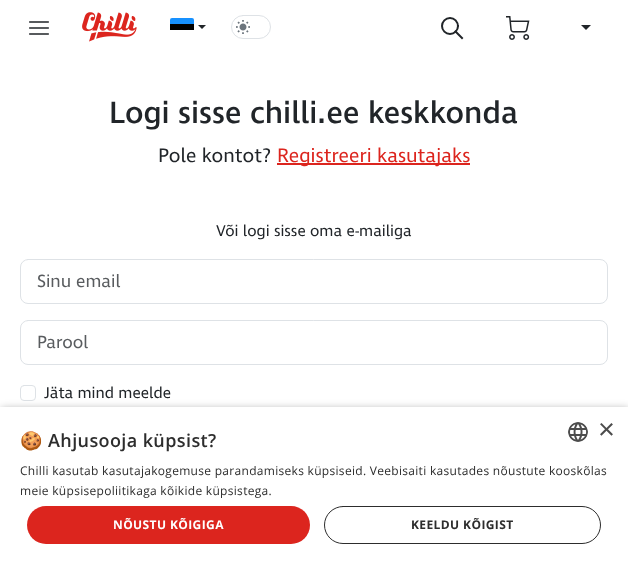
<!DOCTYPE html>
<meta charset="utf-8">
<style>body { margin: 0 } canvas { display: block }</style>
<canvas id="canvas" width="628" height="564"></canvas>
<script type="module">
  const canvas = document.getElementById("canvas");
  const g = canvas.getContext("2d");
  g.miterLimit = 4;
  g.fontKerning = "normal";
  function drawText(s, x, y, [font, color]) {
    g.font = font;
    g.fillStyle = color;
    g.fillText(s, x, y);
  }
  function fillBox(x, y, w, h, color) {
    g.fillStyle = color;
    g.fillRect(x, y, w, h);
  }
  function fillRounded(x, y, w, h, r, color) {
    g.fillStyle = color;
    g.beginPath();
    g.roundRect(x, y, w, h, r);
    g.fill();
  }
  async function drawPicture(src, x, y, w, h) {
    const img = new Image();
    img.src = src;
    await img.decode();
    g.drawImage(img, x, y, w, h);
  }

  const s1 = ["500 31.4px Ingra", "#212529"];
  const s2 = ["20px Ingra", "#212529"];
  const s3 = ["20px Ingra", "#DC251E"];
  const s4 = ["16px Ingra", "#212529"];
  const s5 = ["18px Ingra", "#595C5F"];
  const s6 = ["29px Liberation Sans", "#4D4D4D"];
  const s7 = ["bold 18px Noto Color Emoji", "#2D2D2D"];
  const s8 = ["600 18px Open Sans", "#2D2D2D"];
  const s9 = ["12px Open Sans", "#2D2D2D"];
  const s10 = ["bold 12px Open Sans", "#FFFFFF"];
  const s11 = ["bold 12px Open Sans", "#2D2D2D"];

  fillBox(0, 0, 628, 564, "#FFFFFF");
  g.beginPath();
  g.moveTo(30, 28);
  g.lineTo(48, 28);
  g.moveTo(30, 22);
  g.lineTo(48, 22);
  g.moveTo(30, 34);
  g.lineTo(48, 34);
  g.strokeStyle = "#212529";
  g.lineWidth = 1.7;
  g.lineCap = "square";
  g.stroke();
  await drawPicture("pic1.png", 82, 12, 55, 30);
  g.fillStyle = "#1791FF";
  g.beginPath();
  g.roundRect(170, 18, 24, 6, [2, 2, 0, 0]);
  g.fill();
  fillBox(170, 24, 24, 6, "#000001");
  g.fillStyle = "#212529";
  g.beginPath();
  g.moveTo(198, 25);
  g.lineTo(206, 25);
  g.lineTo(202, 29);
  g.closePath();
  g.fill();
  await drawPicture("pic2.png", 236, 20, 14, 14);
  g.beginPath();
  g.roundRect(231.5, 15.5, 39, 23, 11.5);
  g.strokeStyle = "#DEE2E6";
  g.lineWidth = 1;
  g.stroke();
  g.beginPath();
  g.moveTo(462, 38);
  g.lineTo(455.5, 31.5);
  g.strokeStyle = "#212529";
  g.lineWidth = 2;
  g.stroke();
  g.beginPath();
  g.arc(450, 26, 8, 0, Math.PI * 2);
  g.stroke();
  await drawPicture("pic3.png", 506, 16, 24, 24);
  g.beginPath();
  g.moveTo(581, 25);
  g.lineTo(591, 25);
  g.lineTo(586, 30);
  g.closePath();
  g.fill();
  drawText("Logi sisse chilli.ee keskkonda", 109, 123, s1);
  drawText("Pole kontot?", 158, 162, s2);
  fillBox(277, 163, 193, 2, "#DC251E");
  drawText("Registreeri kasutajaks", 277, 162, s3);
  drawText("Või logi sisse oma e-mailiga", 216, 236, s4);
  g.beginPath();
  g.roundRect(20.5, 259.5, 587, 44, 7.5);
  g.strokeStyle = "#DEE2E6";
  g.lineWidth = 1;
  g.stroke();
  drawText("Sinu email", 37, 287, s5);
  g.beginPath();
  g.roundRect(20.5, 320.5, 587, 44, 7.5);
  g.stroke();
  drawText("Parool", 37, 348, s5);
  g.beginPath();
  g.roundRect(20.5, 385.5, 15, 15, 3.5);
  g.stroke();
  drawText("Jäta mind meelde", 44, 398, s4);
  g.fillStyle = "rgba(0, 0, 0, 0.35)";
  g.filter = "blur(4px)";
  g.beginPath();
  g.rect(1, 409, 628, 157);
  g.fill();
  g.filter = "none";
  fillBox(0, 407, 628, 157, "#FFFFFF");
  await drawPicture("pic4.png", 568, 422, 20, 20);
  drawText("×", 598, 439, s6);
  g.letterSpacing = "0.4px";
  drawText("🍪", 20, 447, s7);
  drawText("Ahjusooja küpsist?", 48, 447, s8);
  g.letterSpacing = "0.3px";
  drawText("Chilli kasutab kasutajakogemuse parandamiseks küpsiseid. Veebisaiti kasutades nõustute kooskõlas", 20, 475, s9);
  drawText("meie küpsisepoliitikaga kõikide küpsistega.", 20, 495, s9);
  fillRounded(27, 506, 283, 38, 19, "#DC251E");
  g.letterSpacing = "0.4px";
  drawText("NÕUSTU KÕIGIGA", 113, 529, s10);
  g.beginPath();
  g.roundRect(324.5, 506.5, 276, 37, 18.5);
  g.strokeStyle = "#2D2D2D";
  g.stroke();
  drawText("KEELDU KÕIGIST", 411, 529, s11);
</script>
